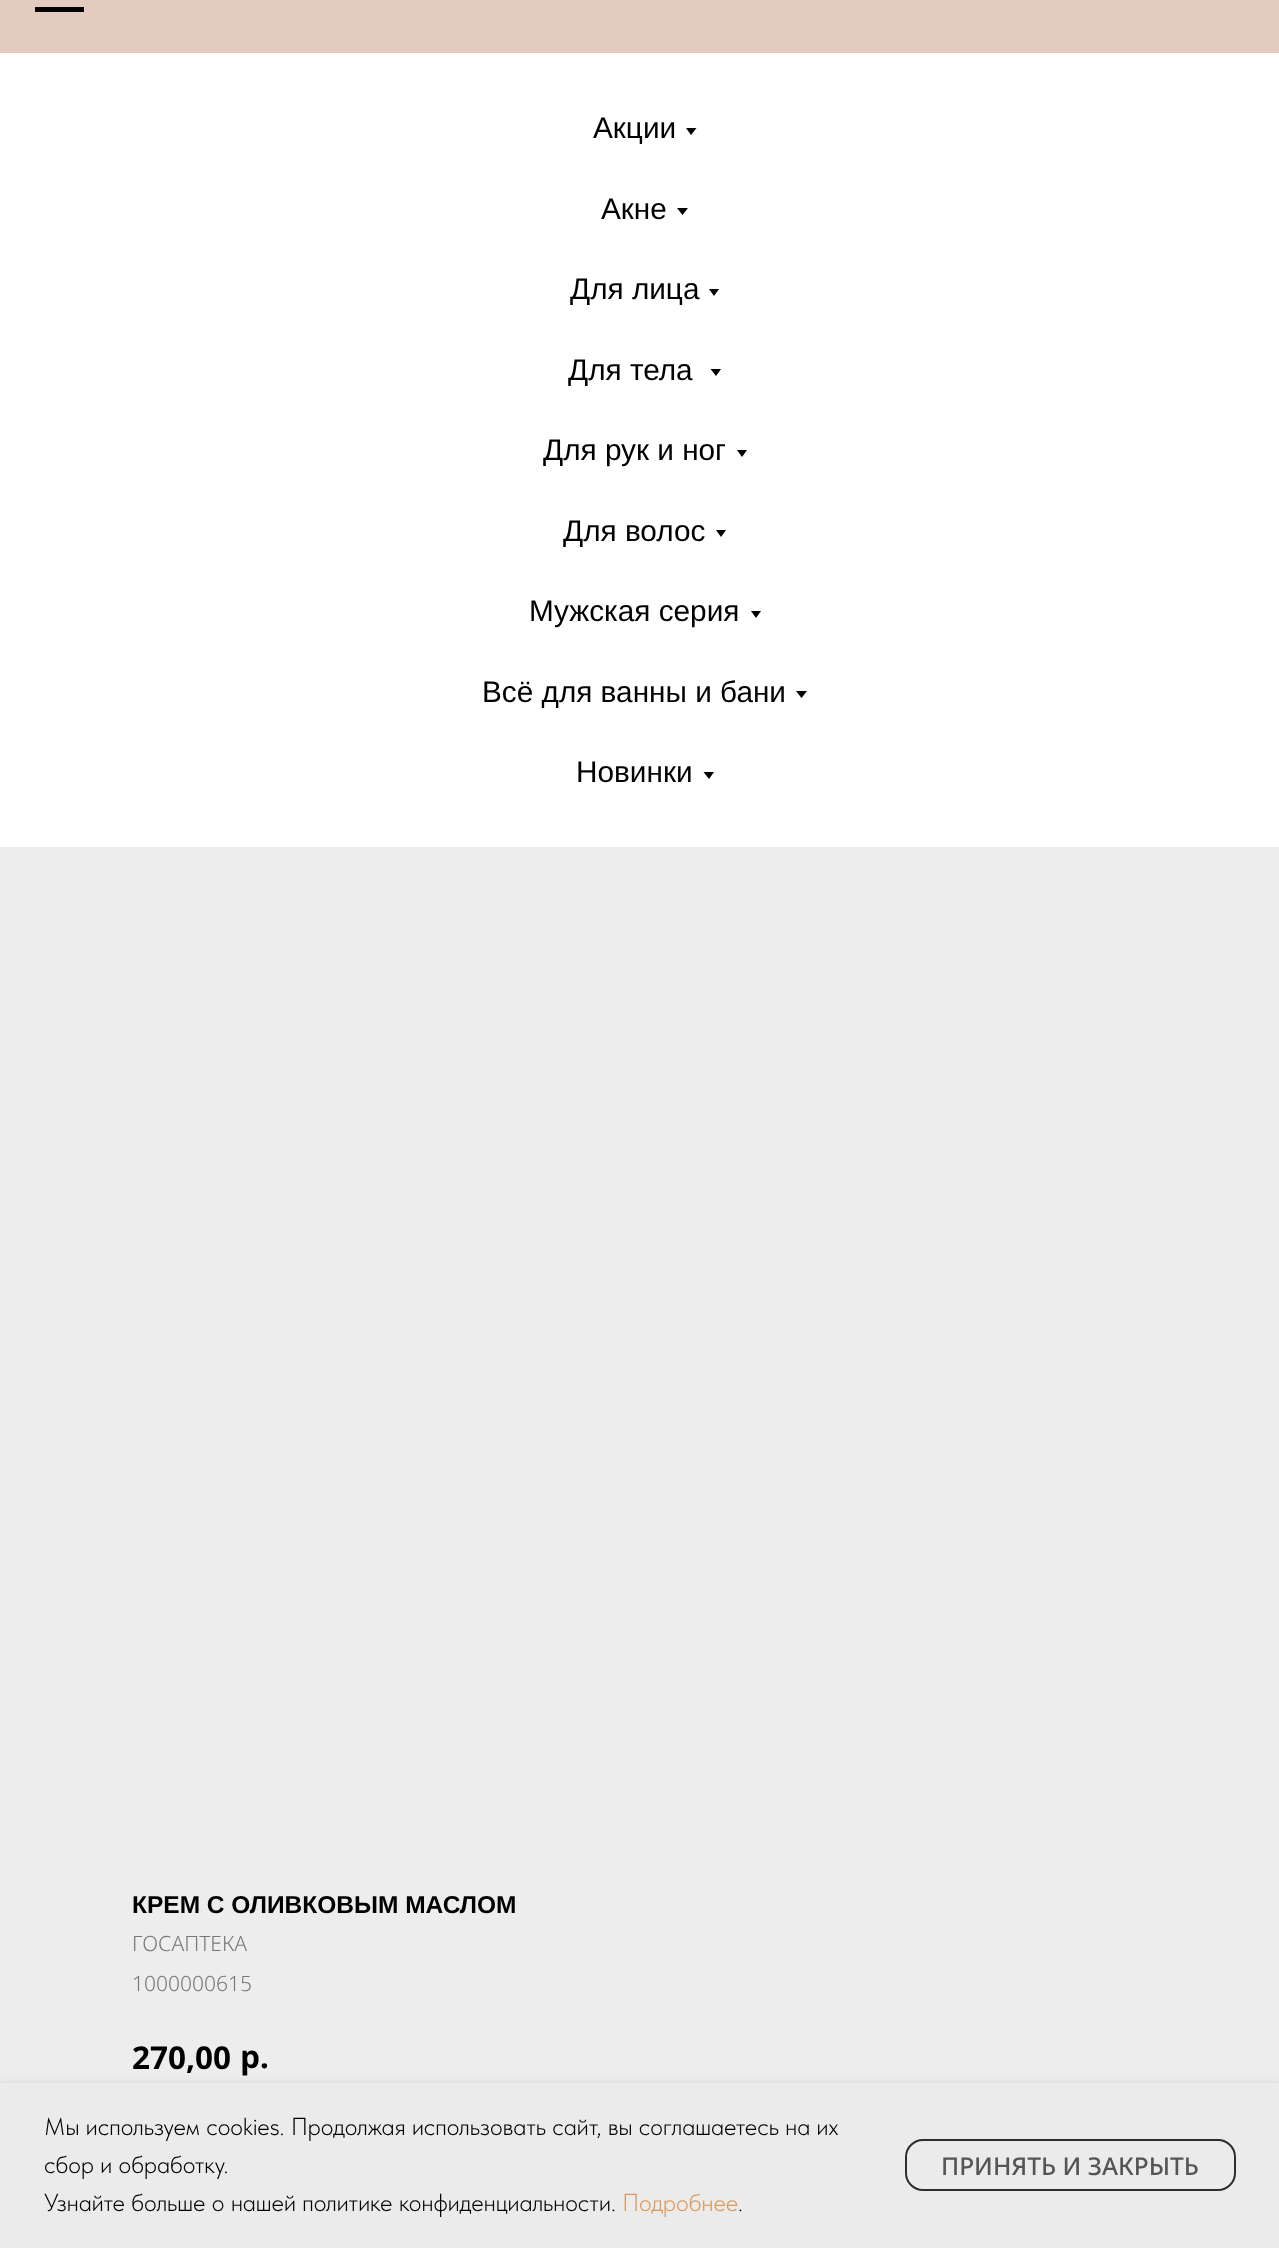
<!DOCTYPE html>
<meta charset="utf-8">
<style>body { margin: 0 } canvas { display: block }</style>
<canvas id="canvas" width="1279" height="2248"></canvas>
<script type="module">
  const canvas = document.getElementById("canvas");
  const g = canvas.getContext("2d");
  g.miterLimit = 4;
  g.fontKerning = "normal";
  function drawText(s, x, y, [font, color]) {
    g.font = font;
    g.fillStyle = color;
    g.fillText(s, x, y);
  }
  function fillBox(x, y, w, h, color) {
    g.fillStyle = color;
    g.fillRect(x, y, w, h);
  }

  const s1 = ["29.75px Liberation Sans", "#000000"];
  const s2 = ["300 24.5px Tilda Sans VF", "#000000"];
  const s3 = ["300 24.5px Tilda Sans VF", "#DB995C"];
  const s4 = ["500 24.5px Noto Sans", "#555555"];
  const s5 = ["bold 24.5px Liberation Sans", "#000000"];
  const s6 = ["300 21px Noto Sans", "#777777"];
  const s7 = ["bold 31.5px Noto Sans", "#000000"];

  fillBox(0, 0, 1279, 2248, "#EDEDED");
  fillBox(0, 0, 1279, 53, "#E3CCBF");
  fillBox(35, 7, 49, 5, "#030000");
  fillBox(0, 53, 1279, 794, "#FFFFFF");
  drawText("Акции", 593, 138, s1);
  g.beginPath();
  g.moveTo(686, 128);
  g.lineTo(696.5, 128);
  g.lineTo(691, 135);
  g.closePath();
  g.fill();
  drawText("Акне", 601, 219, s1);
  g.beginPath();
  g.moveTo(677, 208);
  g.lineTo(688, 208);
  g.lineTo(682.5, 215);
  g.closePath();
  g.fill();
  drawText("Для лица", 570, 299, s1);
  g.beginPath();
  g.moveTo(709, 289);
  g.lineTo(719, 289);
  g.lineTo(714, 296);
  g.closePath();
  g.fill();
  drawText("Для тела", 568, 380, s1);
  g.beginPath();
  g.moveTo(710.5, 369);
  g.lineTo(721, 369);
  g.lineTo(716, 376);
  g.closePath();
  g.fill();
  drawText("Для рук и ног", 543, 460, s1);
  g.beginPath();
  g.moveTo(737, 450);
  g.lineTo(747, 450);
  g.lineTo(742, 457);
  g.closePath();
  g.fill();
  drawText("Для волос", 563, 541, s1);
  g.beginPath();
  g.moveTo(716, 530);
  g.lineTo(726, 530);
  g.lineTo(721, 537);
  g.closePath();
  g.fill();
  drawText("Мужская серия", 529, 621, s1);
  g.beginPath();
  g.moveTo(751, 611);
  g.lineTo(761, 611);
  g.lineTo(756, 618);
  g.closePath();
  g.fill();
  drawText("Всё для ванны и бани", 482, 702, s1);
  g.beginPath();
  g.moveTo(796, 691);
  g.lineTo(807, 691);
  g.lineTo(801.5, 698);
  g.closePath();
  g.fill();
  drawText("Новинки", 576, 782, s1);
  g.beginPath();
  g.moveTo(703.5, 772);
  g.lineTo(714, 772);
  g.lineTo(709, 779);
  g.closePath();
  g.fill();
  g.fillStyle = "rgba(0, 0, 0, 0.1)";
  g.filter = "blur(4.5px)";
  g.beginPath();
  g.rect(0, 2083, 1279, 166);
  g.fill();
  g.filter = "none";
  fillBox(0, 2083, 1279, 165, "#EBEBEB");
  drawText("Мы используем cookies. Продолжая использовать сайт, вы соглашаетесь на их", 44, 2135, s2);
  drawText("сбор и обработку.", 44, 2173, s2);
  drawText("Узнайте больше о нашей политике конфиденциальности.", 44, 2211, s2);
  drawText("Подробнее", 622, 2211, s3);
  drawText(".", 738, 2211, s2);
  g.beginPath();
  g.roundRect(906, 2140, 329, 50, 17);
  g.strokeStyle = "#2E2D2D";
  g.lineWidth = 2;
  g.stroke();
  drawText("ПРИНЯТЬ И ЗАКРЫТЬ", 941, 2175, s4);
  drawText("КРЕМ С ОЛИВКОВЫМ МАСЛОМ", 132, 1913, s5);
  drawText("ГОСАПТЕКА", 132, 1951, s6);
  drawText("1000000615", 132, 1991, s6);
  drawText("270,00", 132, 2069, s7);
  drawText("р.", 240, 2068, s7);
</script>
